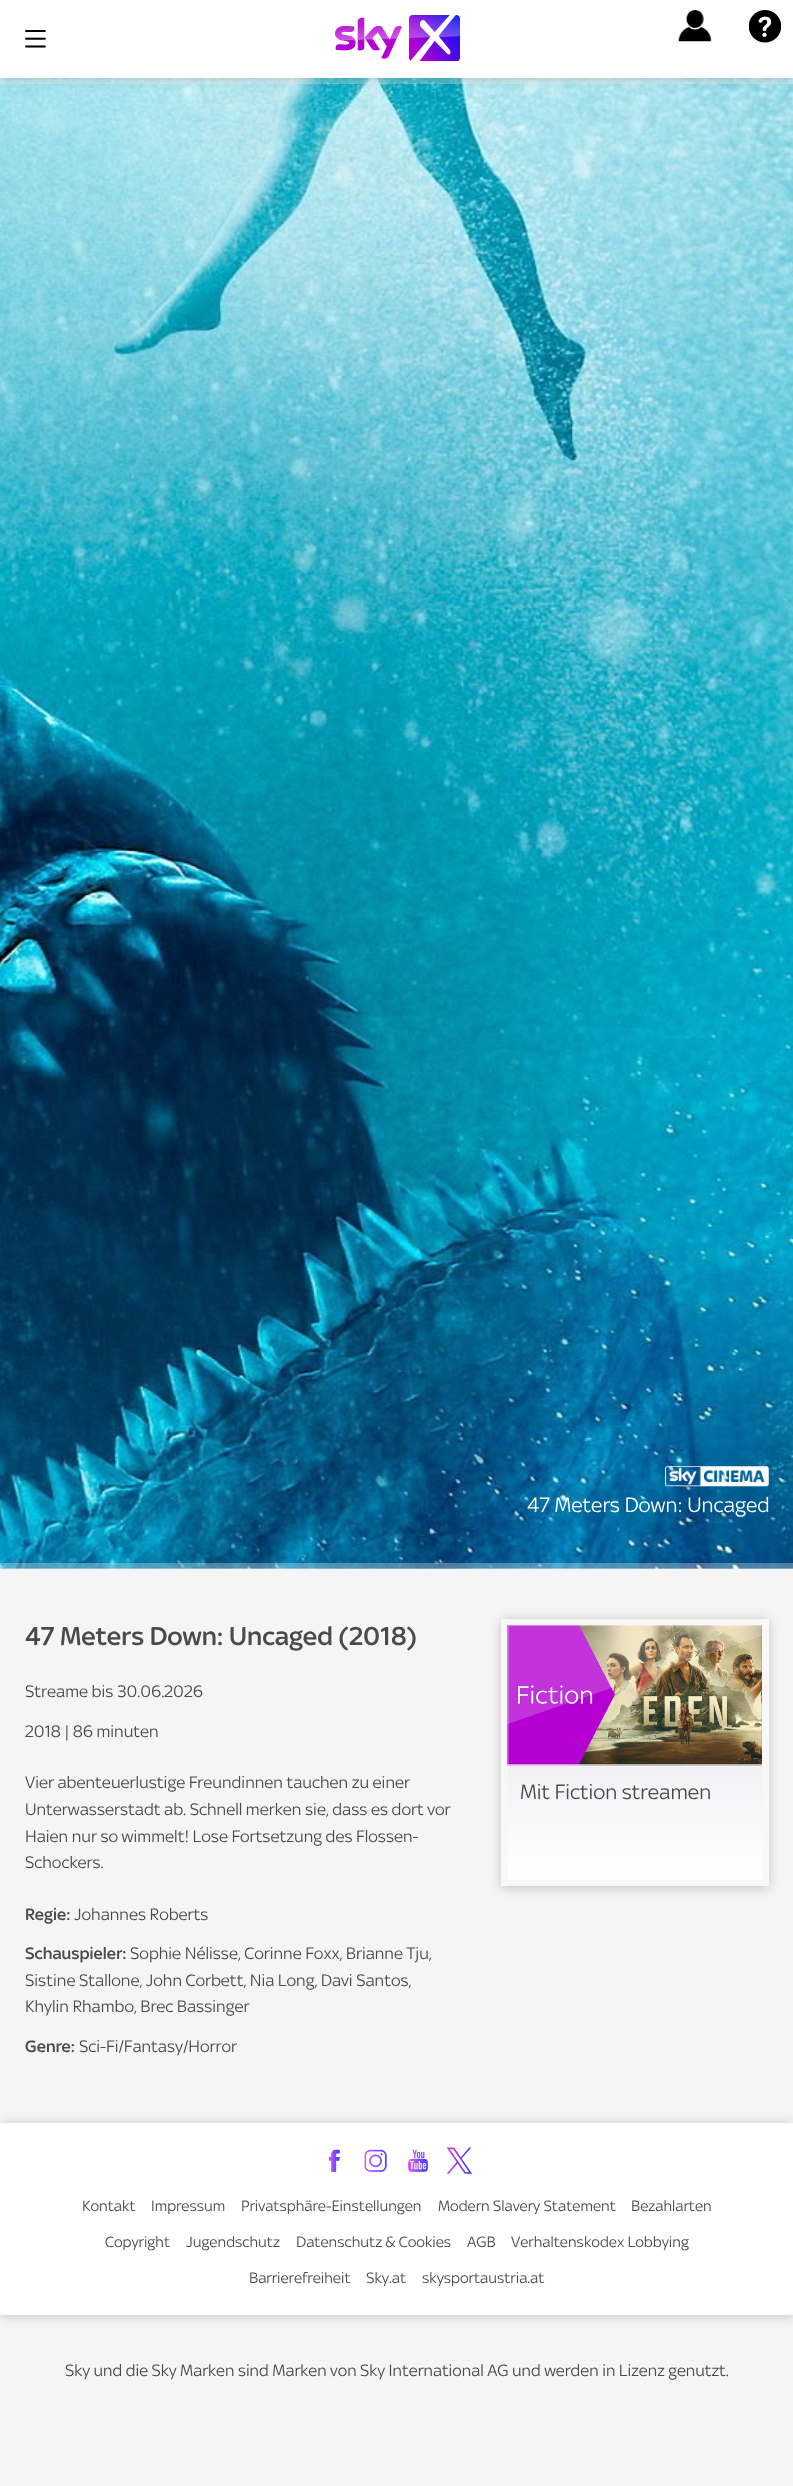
<!DOCTYPE html>
<meta charset="utf-8">
<style>body { margin: 0 } canvas { display: block }</style>
<canvas id="canvas" width="793" height="2486"></canvas>
<script type="module">
  const canvas = document.getElementById("canvas");
  const g = canvas.getContext("2d");
  g.miterLimit = 4;
  g.fontKerning = "normal";
  function drawText(s, x, y, [font, color]) {
    g.font = font;
    g.fillStyle = color;
    g.fillText(s, x, y);
  }
  function fillBox(x, y, w, h, color) {
    g.fillStyle = color;
    g.fillRect(x, y, w, h);
  }
  async function drawPicture(src, x, y, w, h) {
    const img = new Image();
    img.src = src;
    await img.decode();
    g.drawImage(img, x, y, w, h);
  }
  let gradient;

  const s1 = ["22.25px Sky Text", "#FFFFFF"];
  const s2 = ["500 27.75px Sky Text", "#4A4A4A"];
  const s3 = ["17.75px Sky Text", "#4A4A4A"];
  const s4 = ["500 17.75px Sky Text", "#4A4A4A"];
  const s5 = ["22.25px Sky Text", "#4A4A4A"];
  const s6 = ["16px Sky Text", "#4A4A4A"];
  const s7 = ["17.5px Sky Text", "#4A4A4A"];

  fillBox(0, 0, 793, 2486, "#F5F5F5");
  await drawPicture("pic5.png", 0, 78, 793, 1491);
  fillBox(0, 78, 793, 6, "rgba(255, 255, 255, 0.3)");
  g.fillStyle = "rgba(0, 0, 0, 0.2)";
  g.filter = "blur(6px)";
  g.beginPath();
  g.rect(0, 1, 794, 78);
  g.fill();
  g.filter = "none";
  fillBox(0, 0, 793, 78, "#FFFFFF");
  await drawPicture("pic1.png", 335, 15, 125, 47);
  await drawPicture("pic2.png", 678, 10, 34, 32);
  await drawPicture("pic3.png", 749, 10, 32, 33);
  await drawPicture("pic4.png", 25, 30, 21, 18);
  await drawPicture("pic6.png", 665, 1466, 104, 21);
  drawText("47 Meters Down: Uncaged", 527, 1512, s1);
  fillBox(0, 1563, 793, 6, "rgba(255, 255, 255, 0.3)");
  drawText("47 Meters Down: Uncaged (2018)", 25, 1645, s2);
  drawText("Streame bis 30.06.2026", 25, 1697, s3);
  drawText("2018 | 86 minuten", 25, 1737, s3);
  drawText("Vier abenteuerlustige Freundinnen tauchen zu einer", 25, 1788, s3);
  drawText("Unterwasserstadt ab. Schnell merken sie, dass es dort vor", 25, 1815, s3);
  drawText("Haien nur so wimmelt! Lose Fortsetzung des Flossen-", 25, 1842, s3);
  drawText("Schockers.", 25, 1868, s3);
  drawText("Regie:", 25, 1920, s4);
  drawText("Johannes Roberts", 74, 1920, s3);
  drawText("Schauspieler:", 25, 1959, s4);
  drawText("Sophie Nélisse, Corinne Foxx, Brianne Tju,", 130, 1959, s3);
  drawText("Sistine Stallone, John Corbett, Nia Long, Davi Santos,", 25, 1986, s3);
  drawText("Khylin Rhambo, Brec Bassinger", 25, 2012, s3);
  drawText("Genre:", 25, 2052, s4);
  drawText("Sci-Fi/Fantasy/Horror", 79, 2052, s3);
  g.save();
  g.beginPath();
  g.moveTo(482, 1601);
  g.lineTo(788, 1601);
  g.lineTo(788, 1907);
  g.lineTo(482, 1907);
  g.closePath();
  g.moveTo(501, 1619);
  g.lineTo(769, 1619);
  g.lineTo(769, 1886);
  g.lineTo(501, 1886);
  g.closePath();
  g.clip("evenodd");
  g.fillStyle = "rgba(0, 0, 0, 0.2)";
  g.filter = "blur(6px)";
  g.beginPath();
  g.rect(501, 1620, 268, 268);
  g.fill();
  g.filter = "none";
  g.restore();
  fillBox(501, 1619, 268, 267, "rgba(255, 255, 255, 0.3)");
  await drawPicture("pic7.png", 507, 1625, 255, 141);
  gradient = g.createLinearGradient(635, 1766, 635, 1880);
  gradient.addColorStop(0, "#F2F2F5");
  gradient.addColorStop(1, "#FFFFFF");
  g.fillStyle = gradient;
  g.fillRect(508, 1766, 255, 114);
  drawText("Mit Fiction streamen", 520, 1799, s5);
  g.fillStyle = "rgba(0, 0, 0, 0.2)";
  g.filter = "blur(6px)";
  g.beginPath();
  g.rect(0, 2124, 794, 192);
  g.fill();
  g.filter = "none";
  fillBox(0, 2123, 793, 192, "#FFFFFF");
  await drawPicture("pic8.png", 328, 2149, 12, 23);
  await drawPicture("pic9.png", 364, 2149, 23, 23);
  await drawPicture("pic10.png", 408, 2149, 20, 23);
  await drawPicture("pic11.png", 446, 2147, 27, 27);
  drawText("Kontakt", 82, 2211, s6);
  drawText("Impressum", 151, 2211, s6);
  drawText("Privatsphäre-Einstellungen", 241, 2211, s6);
  drawText("Modern Slavery Statement", 438, 2211, s6);
  drawText("Bezahlarten", 631, 2211, s6);
  drawText("Copyright", 105, 2247, s6);
  drawText("Jugendschutz", 186, 2247, s6);
  drawText("Datenschutz & Cookies", 296, 2247, s6);
  drawText("AGB", 467, 2247, s6);
  drawText("Verhaltenskodex Lobbying", 511, 2247, s6);
  drawText("Barrierefreiheit", 249, 2283, s6);
  drawText("Sky.at", 366, 2283, s6);
  drawText("skysportaustria.at", 422, 2283, s6);
  drawText("Sky und die Sky Marken sind Marken von Sky International AG und werden in Lizenz genutzt.", 65, 2376, s7);
</script>
